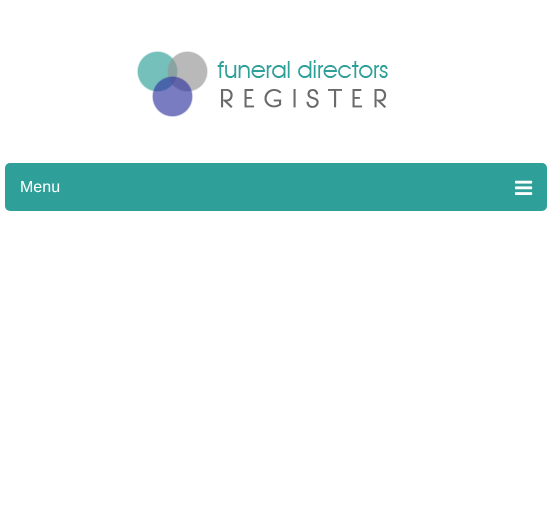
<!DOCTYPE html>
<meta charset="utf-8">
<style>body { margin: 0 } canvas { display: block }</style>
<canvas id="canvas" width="552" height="505"></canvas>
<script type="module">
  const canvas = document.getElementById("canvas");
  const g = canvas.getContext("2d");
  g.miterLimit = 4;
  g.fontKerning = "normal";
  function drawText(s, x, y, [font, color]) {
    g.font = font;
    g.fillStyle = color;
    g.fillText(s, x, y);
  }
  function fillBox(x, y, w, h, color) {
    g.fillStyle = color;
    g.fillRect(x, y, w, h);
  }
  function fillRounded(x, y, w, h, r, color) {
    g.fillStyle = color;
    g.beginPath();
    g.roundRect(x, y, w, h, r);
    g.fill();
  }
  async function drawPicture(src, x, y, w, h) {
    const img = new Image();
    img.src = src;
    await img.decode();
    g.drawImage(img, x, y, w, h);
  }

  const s1 = ["16px Liberation Sans", "#FFFFFF"];

  fillBox(0, 0, 552, 505, "#FFFFFF");
  await drawPicture("pic1.png", 137, 51, 251, 66);
  fillRounded(5, 163, 542, 48, 5, "#2FA099");
  drawText("Menu", 20, 192, s1);
  await drawPicture("pic2.png", 515, 180, 18, 15);
</script>
